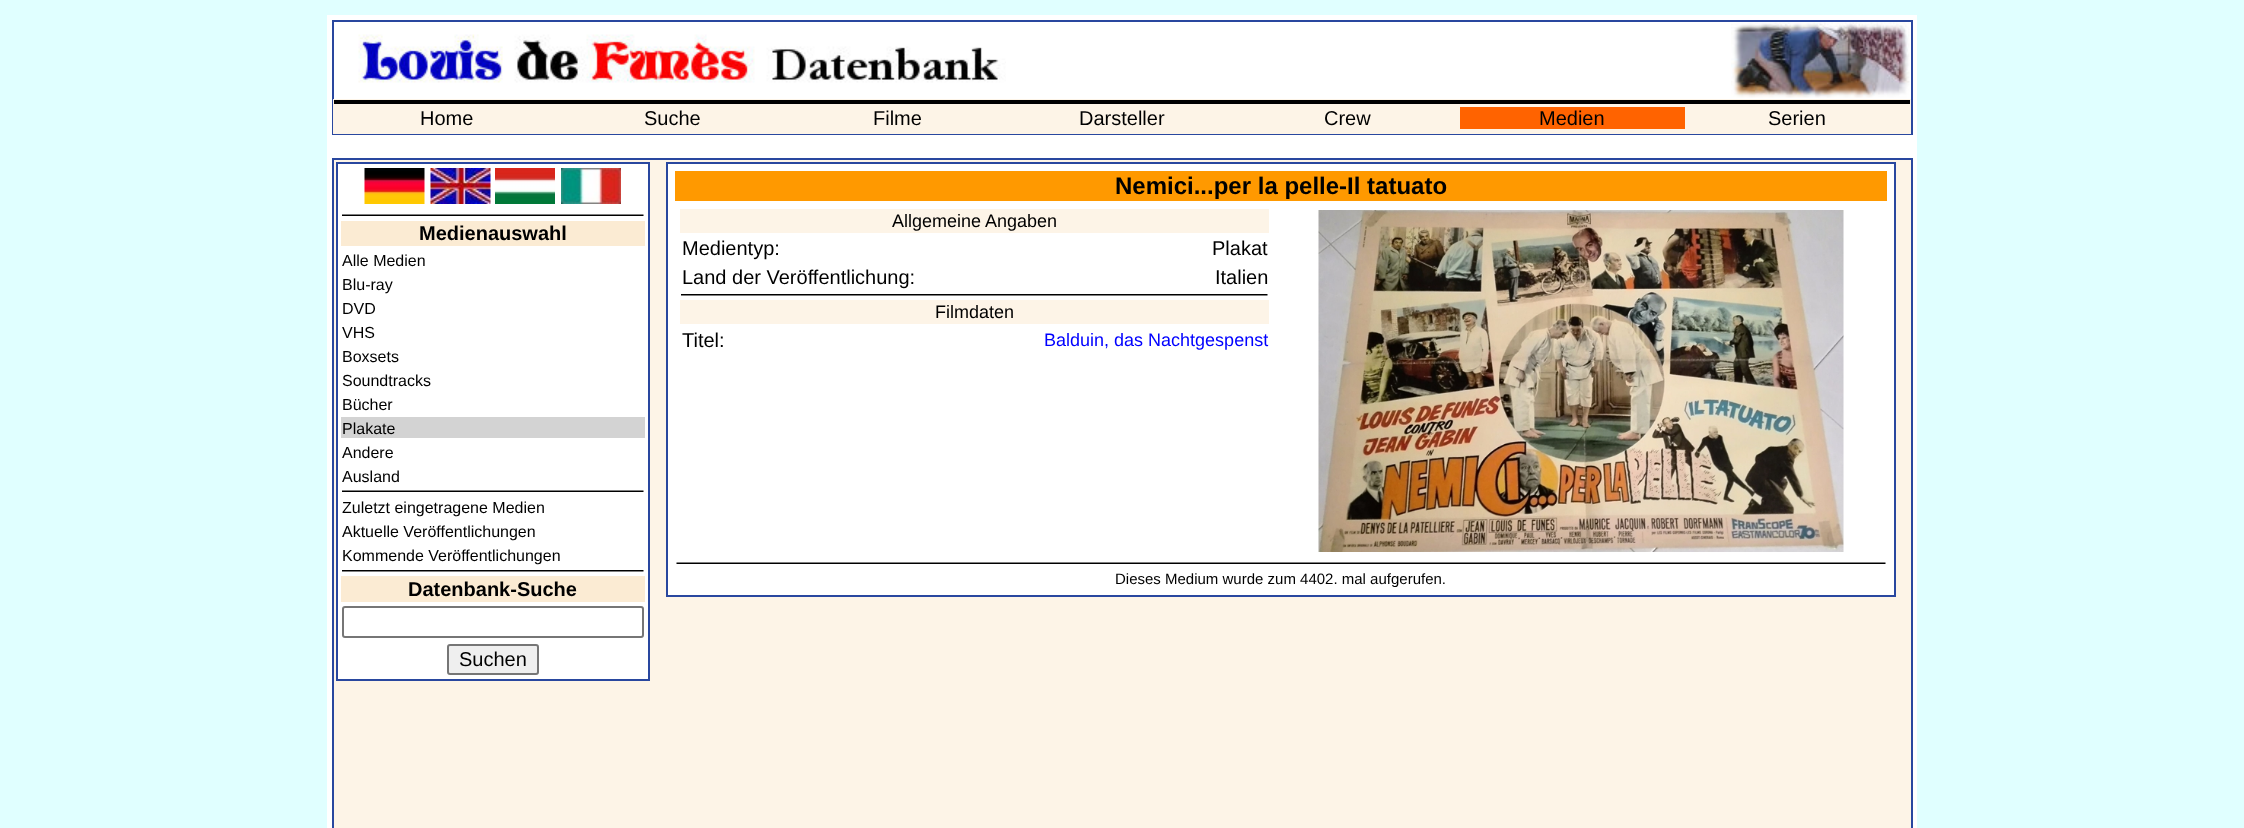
<!DOCTYPE html>
<meta charset="utf-8">
<style>body { margin: 0 } canvas { display: block }</style>
<canvas id="canvas" width="2244" height="828"></canvas>
<script type="module">
  const canvas = document.getElementById("canvas");
  const g = canvas.getContext("2d");
  g.miterLimit = 4;
  g.fontKerning = "normal";
  function drawText(s, x, y, [font, color]) {
    g.font = font;
    g.fillStyle = color;
    g.fillText(s, x, y);
  }
  function fillBox(x, y, w, h, color) {
    g.fillStyle = color;
    g.fillRect(x, y, w, h);
  }
  async function drawPicture(src, x, y, w, h) {
    const img = new Image();
    img.src = src;
    await img.decode();
    g.drawImage(img, x, y, w, h);
  }

  const s1 = ["20px Liberation Sans", "#000000"];
  const s2 = ["bold 20px Liberation Sans", "#000000"];
  const s3 = ["16px Liberation Sans", "#000000"];
  const s4 = ["bold 24px Liberation Sans", "#000000"];
  const s5 = ["18px Liberation Sans", "#000000"];
  const s6 = ["18px Liberation Sans", "#0000FF"];
  const s7 = ["15px Liberation Sans", "#000000"];

  fillBox(0, 0, 2244, 828, "#E0FFFF");
  fillBox(327, 15, 1590, 813, "#FFFFFF");
  g.strokeStyle = "#29479F";
  g.lineWidth = 2;
  g.strokeRect(333, 21, 1579, 113);
  await drawPicture("pic1.png", 358, 34, 648, 49);
  await drawPicture("pic2.png", 1731, 22, 179, 76);
  fillBox(333, 99, 1578, 35, "#FDF4E7");
  fillBox(334, 100, 1576, 4, "#000000");
  drawText("Home", 420, 125, s1);
  drawText("Suche", 644, 125, s1);
  drawText("Filme", 873, 125, s1);
  drawText("Darsteller", 1079, 125, s1);
  drawText("Crew", 1324, 125, s1);
  fillBox(1460, 107, 225, 22, "#FF6300");
  drawText("Medien", 1539, 125, s1);
  drawText("Serien", 1768, 125, s1);
  g.fillStyle = "#FDF4E7";
  g.beginPath();
  g.rect(333, 159, 1579, 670);
  g.fill();
  g.stroke();
  g.fillStyle = "#FFFFFF";
  g.beginPath();
  g.rect(337, 163, 312, 517);
  g.fill();
  g.stroke();
  await drawPicture("pic3.png", 364, 168, 61, 36);
  await drawPicture("pic4.png", 430, 168, 61, 36);
  await drawPicture("pic5.png", 495, 168, 60, 36);
  await drawPicture("pic6.png", 561, 168, 60, 36);
  await drawPicture("pic7.png", 342, 214, 302, 2);
  fillBox(341, 221, 304, 25, "#FBEBD3");
  drawText("Medienauswahl", 419, 240, s2);
  drawText("Alle Medien", 342, 266, s3);
  drawText("Blu-ray", 342, 290, s3);
  drawText("DVD", 342, 314, s3);
  drawText("VHS", 342, 338, s3);
  drawText("Boxsets", 342, 362, s3);
  drawText("Soundtracks", 342, 386, s3);
  drawText("Bücher", 342, 410, s3);
  fillBox(341, 417, 304, 21, "#D3D3D3");
  drawText("Plakate", 342, 434, s3);
  drawText("Andere", 342, 458, s3);
  drawText("Ausland", 342, 482, s3);
  await drawPicture("pic7.png", 342, 490, 302, 2);
  drawText("Zuletzt eingetragene Medien", 342, 513, s3);
  drawText("Aktuelle Veröffentlichungen", 342, 537, s3);
  drawText("Kommende Veröffentlichungen", 342, 561, s3);
  await drawPicture("pic8.png", 342, 570, 302, 2);
  fillBox(341, 576, 304, 26, "#FBEBD3");
  drawText("Datenbank-Suche", 408, 596, s2);
  g.beginPath();
  g.roundRect(343, 607, 300, 30, 2);
  g.strokeStyle = "#767676";
  g.stroke();
  g.fillStyle = "#EFEFEF";
  g.beginPath();
  g.roundRect(448, 645, 90, 29, 2);
  g.fill();
  g.stroke();
  drawText("Suchen", 459, 666, s1);
  g.fillStyle = "#FFFFFF";
  g.beginPath();
  g.rect(667, 163, 1228, 433);
  g.fill();
  g.strokeStyle = "#29479F";
  g.stroke();
  fillBox(675, 171, 1212, 30, "#FF9900");
  drawText("Nemici...per la pelle-Il tatuato", 1115, 194, s4);
  fillBox(680, 209, 589, 24, "#FDF4E7");
  drawText("Allgemeine Angaben", 892, 227, s5);
  drawText("Medientyp:", 682, 255, s1);
  drawText("Plakat", 1212, 255, s1);
  drawText("Land der Veröffentlichung:", 682, 284, s1);
  drawText("Italien", 1215, 284, s1);
  await drawPicture("pic9.png", 681, 294, 587, 2);
  fillBox(680, 300, 589, 24, "#FDF4E7");
  drawText("Filmdaten", 935, 318, s5);
  drawText("Titel:", 682, 347, s1);
  drawText("Balduin, das Nachtgespenst", 1044, 346, s6);
  await drawPicture("pic10.png", 1318, 210, 526, 342);
  await drawPicture("pic11.png", 676, 562, 1210, 2);
  drawText("Dieses Medium wurde zum 4402. mal aufgerufen.", 1115, 584, s7);
</script>
